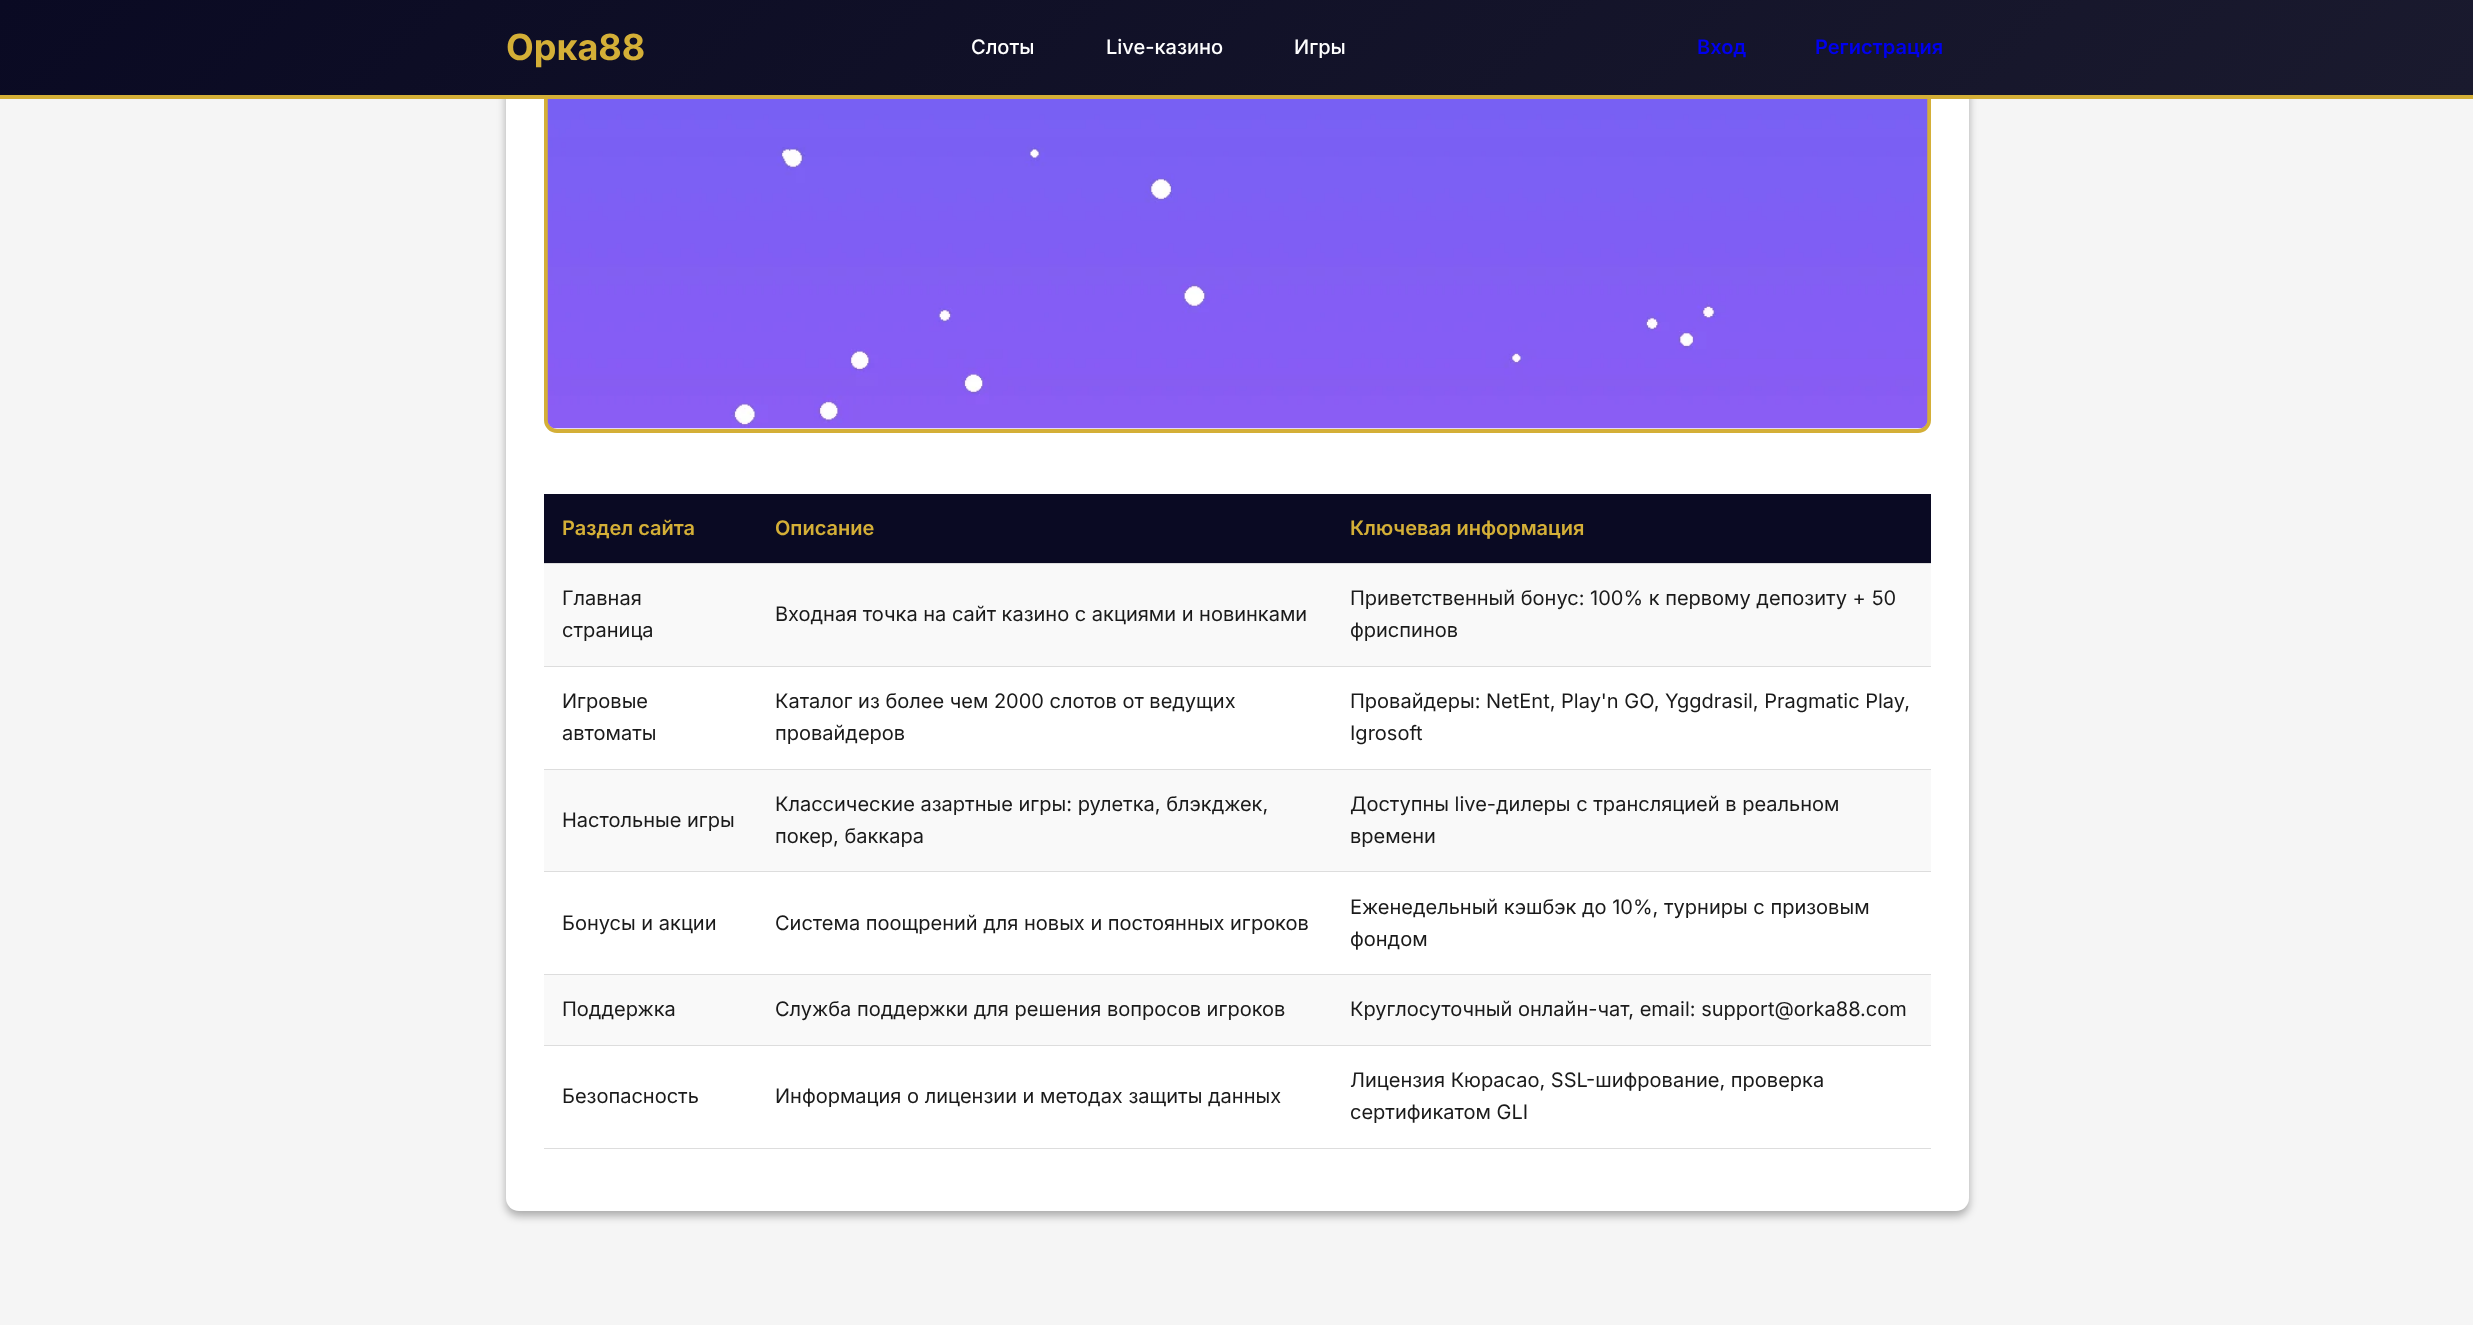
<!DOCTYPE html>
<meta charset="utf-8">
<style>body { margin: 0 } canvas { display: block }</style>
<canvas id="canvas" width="2473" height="1325"></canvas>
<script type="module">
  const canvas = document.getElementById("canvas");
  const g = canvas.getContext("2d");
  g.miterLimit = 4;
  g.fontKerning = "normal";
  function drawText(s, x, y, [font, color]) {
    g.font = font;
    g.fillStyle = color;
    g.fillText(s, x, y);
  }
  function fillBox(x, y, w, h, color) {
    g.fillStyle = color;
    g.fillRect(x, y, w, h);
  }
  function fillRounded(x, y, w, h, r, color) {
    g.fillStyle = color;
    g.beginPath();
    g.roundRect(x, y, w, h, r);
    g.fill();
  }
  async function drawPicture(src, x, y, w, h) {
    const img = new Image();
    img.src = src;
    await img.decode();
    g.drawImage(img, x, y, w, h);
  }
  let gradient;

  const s1 = ["bold 36px Inter", "#D4AF37"];
  const s2 = ["500 20px Inter", "#FFFFFF"];
  const s3 = ["600 20px Inter", "#0000EE"];
  const s4 = ["600 20px Inter", "#D4AF37"];
  const s5 = ["20px Inter", "#1A1A1A"];

  fillBox(0, 0, 2473, 1325, "#F5F5F5");
  g.fillStyle = "rgba(0, 0, 0, 0.3)";
  g.filter = "blur(4px)";
  g.beginPath();
  g.roundRect(506, -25, 1463, 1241, 13);
  g.fill();
  g.filter = "none";
  fillRounded(506, -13, 1463, 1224, 13, "#FFFFFF");
  g.beginPath();
  g.roundRect(546, -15, 1383, 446, 11);
  g.strokeStyle = "#D4AF37";
  g.lineWidth = 4;
  g.stroke();
  gradient = g.createLinearGradient(595, -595, 1879, 690);
  gradient.addColorStop(0, "#0A0A23");
  gradient.addColorStop(1, "#1A1A2E");
  g.fillStyle = gradient;
  g.fillRect(0, 0, 2473, 95);
  fillBox(0, 95, 2473, 4, "#D4AF37");
  drawText("Орка88", 506, 60, s1);
  drawText("Слоты", 971, 54, s2);
  drawText("Live-казино", 1106, 54, s2);
  drawText("Игры", 1294, 54, s2);
  drawText("Вход", 1697, 54, s3);
  drawText("Регистрация", 1815, 54, s3);
  await drawPicture("pic1.png", 547, 99, 1381, 330);
  fillBox(544, 494, 1387, 69, "#0A0A23");
  drawText("Раздел сайта", 562, 535, s4);
  drawText("Описание", 775, 535, s4);
  fillBox(544, 563, 1387, 1, "#DDDDDD");
  drawText("Ключевая информация", 1350, 535, s4);
  fillBox(544, 564, 1387, 102, "#F9F9F9");
  drawText("Главная", 562, 605, s5);
  drawText("страница", 562, 637, s5);
  drawText("Входная точка на сайт казино с акциями и новинками", 775, 621, s5);
  fillBox(544, 666, 1387, 1, "#DDDDDD");
  drawText("Приветственный бонус: 100% к первому депозиту + 50", 1350, 605, s5);
  drawText("фриспинов", 1350, 637, s5);
  drawText("Игровые", 562, 708, s5);
  drawText("автоматы", 562, 740, s5);
  drawText("Каталог из более чем 2000 слотов от ведущих", 775, 708, s5);
  drawText("провайдеров", 775, 740, s5);
  fillBox(544, 769, 1387, 1, "#DDDDDD");
  drawText("Провайдеры: NetEnt, Play'n GO, Yggdrasil, Pragmatic Play,", 1350, 708, s5);
  drawText("Igrosoft", 1350, 740, s5);
  fillBox(544, 770, 1387, 101, "#F9F9F9");
  drawText("Настольные игры", 562, 827, s5);
  drawText("Классические азартные игры: рулетка, блэкджек,", 775, 811, s5);
  drawText("покер, баккара", 775, 843, s5);
  fillBox(544, 871, 1387, 1, "#DDDDDD");
  drawText("Доступны live-дилеры с трансляцией в реальном", 1350, 811, s5);
  drawText("времени", 1350, 843, s5);
  drawText("Бонусы и акции", 562, 930, s5);
  drawText("Система поощрений для новых и постоянных игроков", 775, 930, s5);
  fillBox(544, 974, 1387, 1, "#DDDDDD");
  drawText("Еженедельный кэшбэк до 10%, турниры с призовым", 1350, 914, s5);
  drawText("фондом", 1350, 946, s5);
  fillBox(544, 975, 1387, 70, "#F9F9F9");
  drawText("Поддержка", 562, 1016, s5);
  drawText("Служба поддержки для решения вопросов игроков", 775, 1016, s5);
  fillBox(544, 1045, 1387, 1, "#DDDDDD");
  drawText("Круглосуточный онлайн-чат, email: support@orka88.com", 1350, 1016, s5);
  drawText("Безопасность", 562, 1103, s5);
  drawText("Информация о лицензии и методах защиты данных", 775, 1103, s5);
  fillBox(544, 1148, 1387, 1, "#DDDDDD");
  drawText("Лицензия Кюрасао, SSL-шифрование, проверка", 1350, 1087, s5);
  drawText("сертификатом GLI", 1350, 1119, s5);
</script>
